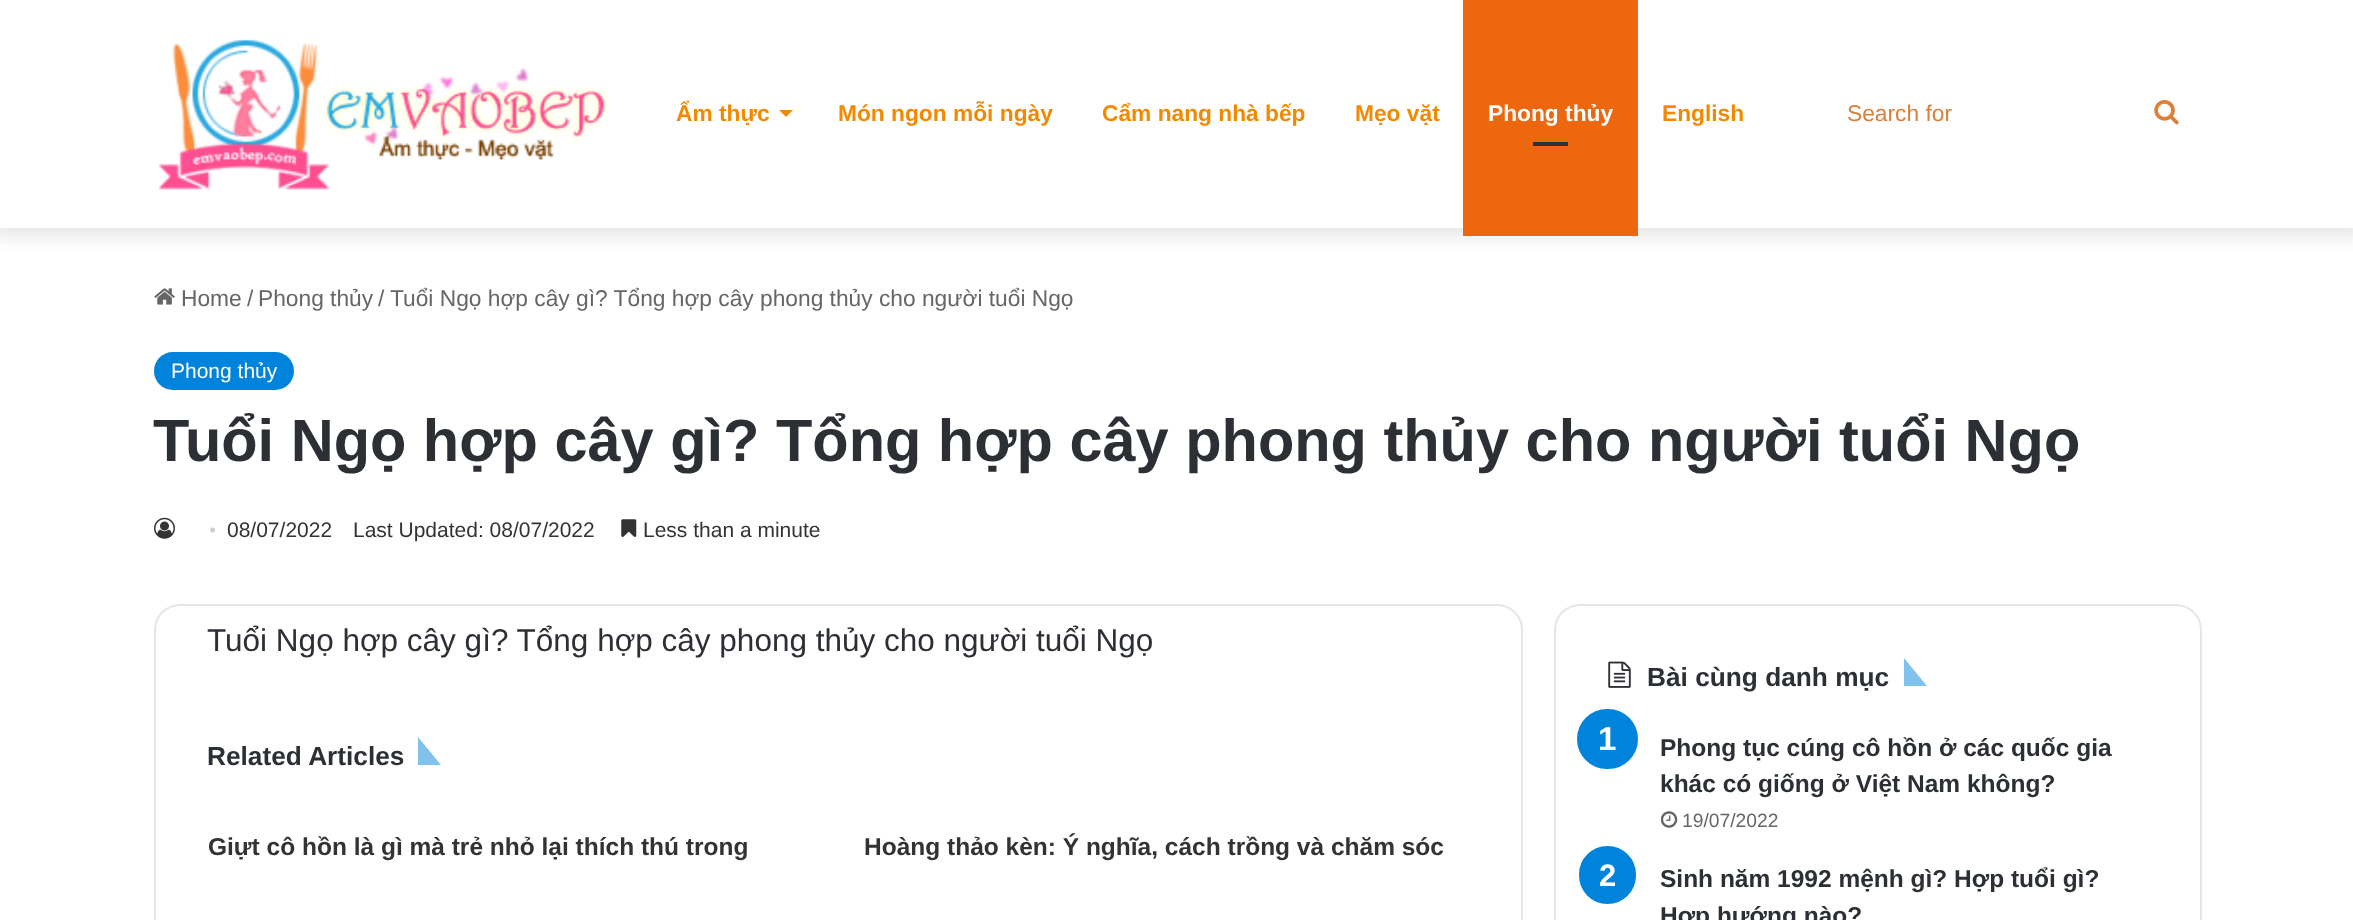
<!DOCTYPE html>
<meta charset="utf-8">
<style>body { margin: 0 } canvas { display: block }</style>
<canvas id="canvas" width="2353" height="920"></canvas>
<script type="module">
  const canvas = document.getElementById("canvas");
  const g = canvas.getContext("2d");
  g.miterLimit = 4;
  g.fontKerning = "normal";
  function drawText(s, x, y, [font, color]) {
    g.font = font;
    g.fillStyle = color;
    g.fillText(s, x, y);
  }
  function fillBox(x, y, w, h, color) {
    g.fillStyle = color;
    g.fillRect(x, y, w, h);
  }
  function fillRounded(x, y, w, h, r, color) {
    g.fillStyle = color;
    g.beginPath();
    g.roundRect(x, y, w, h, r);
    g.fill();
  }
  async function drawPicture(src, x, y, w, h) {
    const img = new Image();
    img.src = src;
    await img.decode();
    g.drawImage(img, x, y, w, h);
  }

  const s1 = ["bold 22.75px Liberation Sans", "#F28900"];
  const s2 = ["bold 22.75px Liberation Sans", "#FFFFFF"];
  const s3 = ["22.75px Liberation Sans", "#DB7F39"];
  const s4 = ["22.75px Liberation Sans", "#666666"];
  const s5 = ["21px Liberation Sans", "#FFFFFF"];
  const s6 = ["bold 59.5px Liberation Sans", "#2C2F34"];
  const s7 = ["21px Liberation Serif", "#CCCCCC"];
  const s8 = ["21px Liberation Sans", "#333333"];
  const s9 = ["31.5px Liberation Sans", "#2C2F34"];
  const s10 = ["bold 26.25px Liberation Sans", "#2C2F34"];
  const s11 = ["bold 24.5px Liberation Sans", "#333333"];
  const s12 = ["bold 33px Liberation Sans", "#FFFFFF"];
  const s13 = ["bold 24.5px Liberation Sans", "#2C2F34"];
  const s14 = ["19.25px Liberation Sans", "#666666"];
  const s15 = ["bold 31px Liberation Sans", "#FFFFFF"];

  fillBox(0, 0, 2353, 920, "#FFFFFF");
  g.fillStyle = "rgba(0, 0, 0, 0.1)";
  g.filter = "blur(9px)";
  g.beginPath();
  g.rect(-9, -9, 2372, 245);
  g.fill();
  g.filter = "none";
  fillBox(0, 0, 2353, 228, "#FFFFFF");
  await drawPicture("pic1.png", 158, 39, 451, 151);
  drawText("Ẩm thực", 676, 121, s1);
  g.beginPath();
  g.moveTo(779, 110);
  g.lineTo(793, 110);
  g.lineTo(786, 117);
  g.closePath();
  g.fill();
  drawText("Món ngon mỗi ngày", 838, 121, s1);
  drawText("Cẩm nang nhà bếp", 1102, 121, s1);
  drawText("Mẹo vặt", 1355, 121, s1);
  fillBox(1463, 0, 175, 236, "#ED670E");
  drawText("Phong thủy", 1488, 121, s2);
  fillBox(1533, 142, 35, 4, "#2C2F34");
  drawText("English", 1662, 121, s1);
  drawText("Search for", 1847, 121, s3);
  await drawPicture("pic2.png", 2154, 100, 25, 25);
  await drawPicture("pic3.png", 154, 288, 21, 17);
  drawText("Home", 181, 306, s4);
  drawText("/", 247, 306, s4);
  drawText("Phong thủy", 258, 306, s4);
  drawText("/", 378, 306, s4);
  drawText("Tuổi Ngọ hợp cây gì? Tổng hợp cây phong thủy cho người tuổi Ngọ", 390, 306, s4);
  fillRounded(154, 352, 140, 38, 19, "#0083DB");
  drawText("Phong thủy", 171, 378, s5);
  drawText("Tuổi Ngọ hợp cây gì? Tổng hợp cây phong thủy cho người tuổi Ngọ", 153, 461, s6);
  await drawPicture("pic4.png", 154, 517, 21, 22);
  drawText("•", 209, 537, s7);
  drawText("08/07/2022", 227, 537, s8);
  drawText("Last Updated: 08/07/2022", 353, 537, s8);
  await drawPicture("pic5.png", 621, 519, 16, 18);
  drawText("Less than a minute", 643, 537, s8);
  g.beginPath();
  g.roundRect(155, 605, 1367, 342, 25);
  g.strokeStyle = "#E6E6E6";
  g.lineWidth = 2;
  g.stroke();
  drawText("Tuổi Ngọ hợp cây gì? Tổng hợp cây phong thủy cho người tuổi Ngọ", 207, 651, s9);
  drawText("Related Articles", 207, 765, s10);
  g.fillStyle = "#81C2ED";
  g.beginPath();
  g.moveTo(418, 765);
  g.lineTo(418, 737);
  g.lineTo(441, 765);
  g.closePath();
  g.fill();
  drawText("Giựt cô hồn là gì mà trẻ nhỏ lại thích thú trong", 208, 855, s11);
  drawText("Hoàng thảo kèn: Ý nghĩa, cách trồng và chăm sóc", 864, 855, s11);
  g.beginPath();
  g.roundRect(1555, 605, 646, 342, 25);
  g.stroke();
  await drawPicture("pic6.png", 1608, 661, 23, 27);
  drawText("Bài cùng danh mục", 1647, 686, s10);
  g.fillStyle = "#81C2ED";
  g.beginPath();
  g.moveTo(1904, 686);
  g.lineTo(1904, 658);
  g.lineTo(1927, 686);
  g.closePath();
  g.fill();
  g.fillStyle = "#0083DB";
  g.beginPath();
  g.roundRect(1574.5, 706.5, 66, 65, 32.5);
  g.fill();
  g.strokeStyle = "#FFFFFF";
  g.lineWidth = 5;
  g.stroke();
  drawText("1", 1598, 750, s12);
  drawText("Phong tục cúng cô hồn ở các quốc gia", 1660, 756, s13);
  drawText("khác có giống ở Việt Nam không?", 1660, 792, s13);
  await drawPicture("pic7.png", 1661, 811, 17, 17);
  drawText("19/07/2022", 1682, 827, s14);
  g.fillStyle = "#0083DB";
  g.beginPath();
  g.roundRect(1577, 844, 61, 62, 30.5);
  g.fill();
  g.lineWidth = 4;
  g.stroke();
  drawText("2", 1599, 886, s15);
  drawText("Sinh năm 1992 mệnh gì? Hợp tuổi gì?", 1660, 887, s13);
  drawText("Hợp hướng nào?", 1660, 924, s13);
</script>
